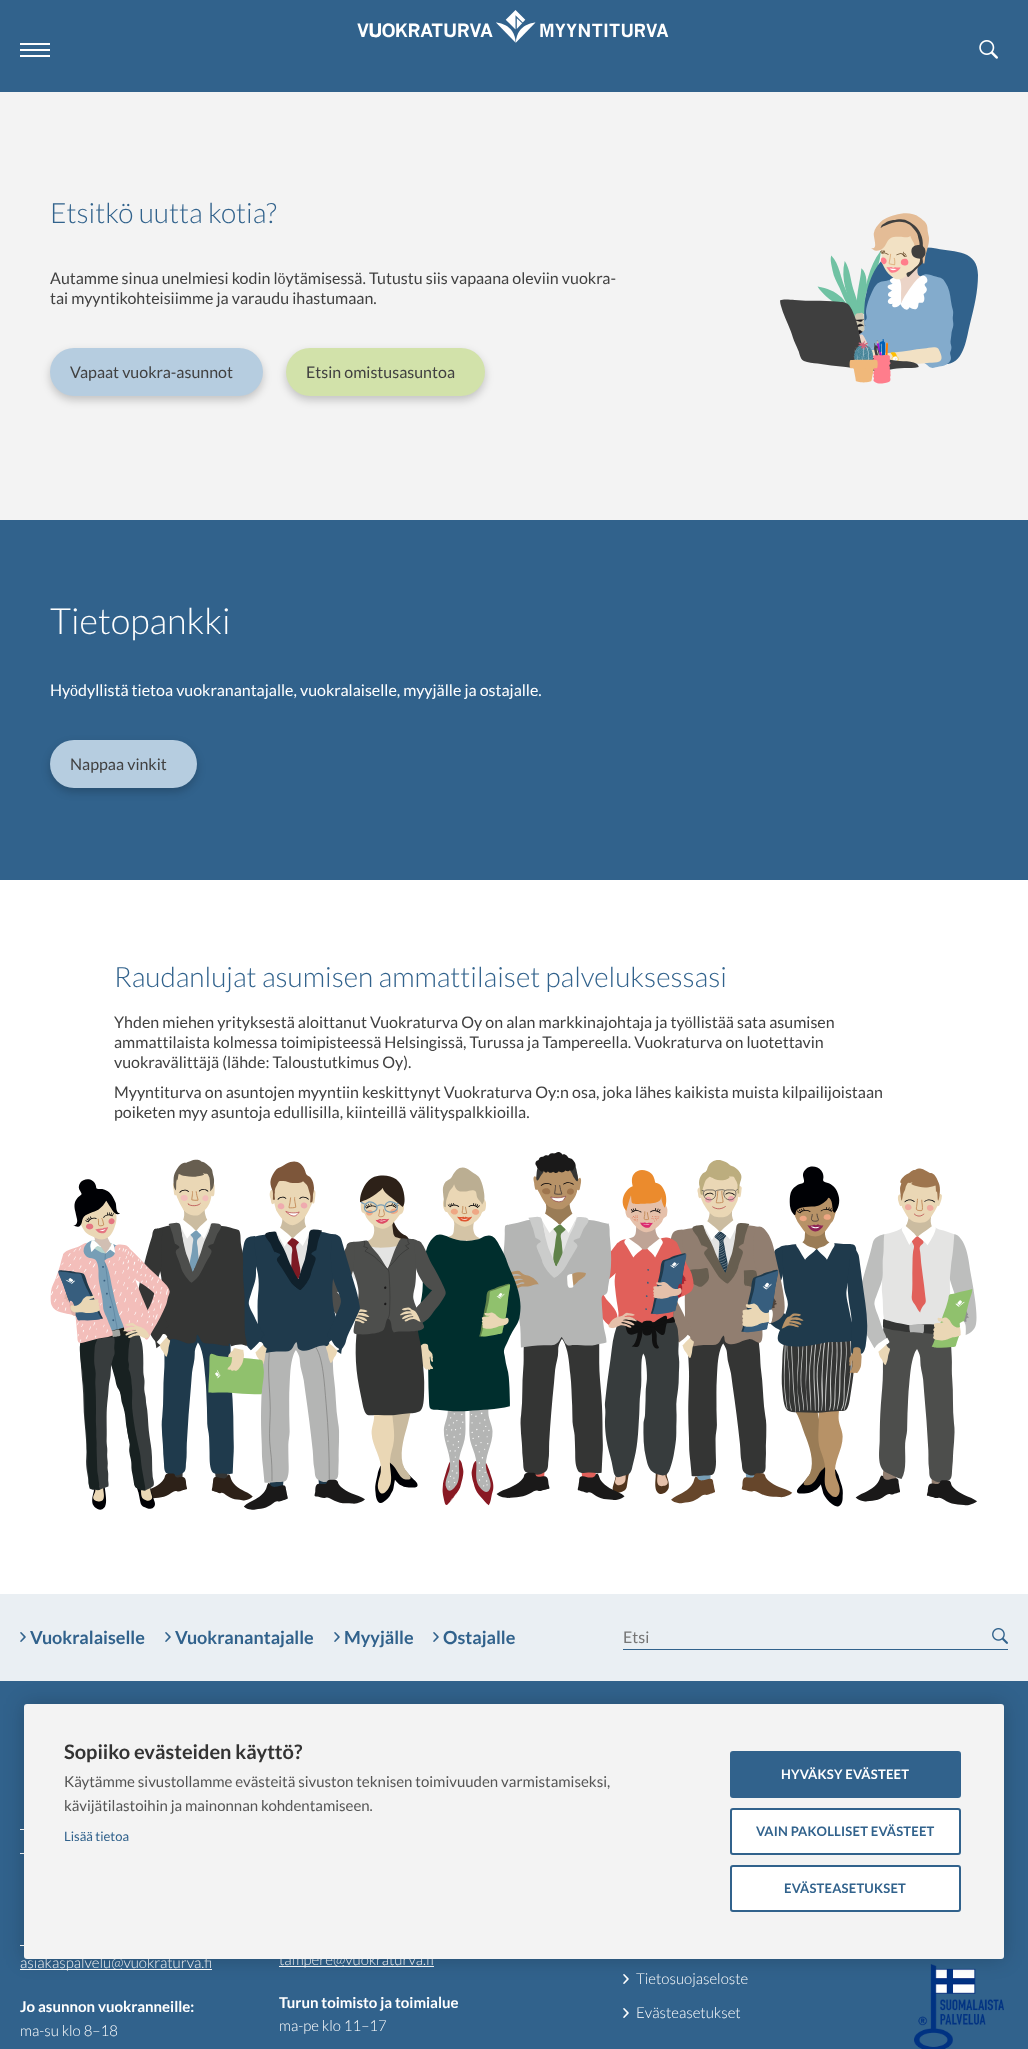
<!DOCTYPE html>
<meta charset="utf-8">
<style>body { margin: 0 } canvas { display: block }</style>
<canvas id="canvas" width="1028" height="2049"></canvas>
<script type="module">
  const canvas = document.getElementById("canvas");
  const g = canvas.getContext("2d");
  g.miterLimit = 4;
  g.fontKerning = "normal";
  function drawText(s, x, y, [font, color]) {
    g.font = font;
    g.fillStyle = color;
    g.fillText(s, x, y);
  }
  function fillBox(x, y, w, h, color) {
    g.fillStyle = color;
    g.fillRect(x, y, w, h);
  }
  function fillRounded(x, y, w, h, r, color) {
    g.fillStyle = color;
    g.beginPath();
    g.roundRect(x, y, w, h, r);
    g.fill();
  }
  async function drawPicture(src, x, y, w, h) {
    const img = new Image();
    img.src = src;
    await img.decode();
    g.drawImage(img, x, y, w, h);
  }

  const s1 = ["300 28px Lato", "#31628C"];
  const s2 = ["16px Lato", "#414141"];
  const s3 = ["300 36px Lato", "#FFFFFF"];
  const s4 = ["16px Lato", "#FFFFFF"];
  const s5 = ["bold 18px Lato", "#31628C"];
  const s6 = ["16px Lato", "#757575"];
  const s7 = ["300 15px Lato", "#FFFFFF"];
  const s8 = ["bold 15px Lato", "#FFFFFF"];
  const s9 = ["bold 20px Lato", "#333333"];
  const s10 = ["15px Lato", "#555555"];
  const s11 = ["13px Lato", "#31628C"];
  const s12 = ["bold 13px Lato", "#FFFFFF"];
  const s13 = ["bold 13px Lato", "#31628C"];

  fillBox(0, 0, 1028, 2049, "#FFFFFF");
  fillBox(0, 0, 1028, 92, "#31628C");
  await drawPicture("pic1.png", 357, 10, 312, 33);
  fillBox(20, 43, 30, 2, "#FFFFFF");
  fillBox(20, 49, 30, 2, "#FFFFFF");
  fillBox(20, 55, 30, 2, "#FFFFFF");
  await drawPicture("pic2.png", 979, 40, 19, 19);
  fillBox(0, 92, 1028, 428, "#F3F3F3");
  drawText("Etsitkö uutta kotia?", 50, 223, s1);
  drawText("Autamme sinua unelmiesi kodin löytämisessä. Tutustu siis vapaana oleviin vuokra-", 50, 284, s2);
  drawText("tai myyntikohteisiimme ja varaudu ihastumaan.", 50, 304, s2);
  g.fillStyle = "rgba(0, 0, 0, 0.2)";
  g.filter = "blur(4px)";
  g.beginPath();
  g.roundRect(50, 352, 213, 48, 24);
  g.fill();
  g.filter = "none";
  fillRounded(50, 348, 213, 48, 24, "#B6CDE0");
  drawText("Vapaat vuokra-asunnot", 70, 378, s2);
  g.fillStyle = "rgba(0, 0, 0, 0.2)";
  g.filter = "blur(4px)";
  g.beginPath();
  g.roundRect(286, 352, 199, 48, 24);
  g.fill();
  g.filter = "none";
  fillRounded(286, 348, 199, 48, 24, "#D2E2AA");
  drawText("Etsin omistusasuntoa", 306, 378, s2);
  await drawPicture("pic3.png", 780, 213, 198, 171);
  fillBox(0, 520, 1028, 360, "#31628C");
  drawText("Tietopankki", 50, 634, s3);
  drawText("Hyödyllistä tietoa vuokranantajalle, vuokralaiselle, myyjälle ja ostajalle.", 50, 696, s4);
  g.fillStyle = "rgba(0, 0, 0, 0.2)";
  g.filter = "blur(4px)";
  g.beginPath();
  g.roundRect(50, 744, 147, 48, 24);
  g.fill();
  g.filter = "none";
  fillRounded(50, 740, 147, 48, 24, "#B6CDE0");
  drawText("Nappaa vinkit", 70, 770, s2);
  drawText("Raudanlujat asumisen ammattilaiset palveluksessasi", 114, 987, s1);
  drawText("Yhden miehen yrityksestä aloittanut Vuokraturva Oy on alan markkinajohtaja ja työllistää sata asumisen", 114, 1028, s2);
  drawText("ammattilaista kolmessa toimipisteessä Helsingissä, Turussa ja Tampereella. Vuokraturva on luotettavin", 114, 1048, s2);
  drawText("vuokravälittäjä (lähde: Taloustutkimus Oy).", 114, 1068, s2);
  drawText("Myyntiturva on asuntojen myyntiin keskittynyt Vuokraturva Oy:n osa, joka lähes kaikista muista kilpailijoistaan", 114, 1098, s2);
  drawText("poiketen myy asuntoja edullisilla, kiinteillä välityspalkkioilla.", 114, 1118, s2);
  await drawPicture("pic4.png", 50, 1152, 927, 358);
  fillBox(0, 1594, 1028, 87, "#EAEFF3");
  await drawPicture("pic5.png", 20, 1632, 6, 10);
  drawText("Vuokralaiselle", 30, 1644, s5);
  await drawPicture("pic5.png", 165, 1632, 6, 10);
  drawText("Vuokranantajalle", 175, 1644, s5);
  await drawPicture("pic5.png", 334, 1632, 6, 10);
  drawText("Myyjälle", 344, 1644, s5);
  await drawPicture("pic5.png", 433, 1632, 6, 10);
  drawText("Ostajalle", 443, 1644, s5);
  await drawPicture("pic6.png", 992, 1628, 16, 16);
  fillBox(623, 1649, 385, 1, "#31628C");
  drawText("Etsi", 623, 1643, s6);
  fillBox(0, 1681, 1028, 368, "#31628C");
  fillBox(20, 1829, 4, 1, "#FFFFFF");
  fillBox(20, 1853, 4, 1, "#FFFFFF");
  fillBox(20, 1945, 4, 1, "#FFFFFF");
  fillBox(20, 1969, 192, 1, "#FFFFFF");
  drawText("asiakaspalvelu@vuokraturva.fi", 20, 1968, s7);
  drawText("Jo asunnon vuokranneille:", 20, 2012, s8);
  drawText("ma-su klo 8–18", 20, 2036, s7);
  fillBox(279, 1966, 155, 1, "#FFFFFF");
  drawText("tampere@vuokraturva.fi", 279, 1965, s7);
  drawText("Turun toimisto ja toimialue", 279, 2008, s8);
  drawText("ma-pe klo 11–17", 279, 2031, s7);
  await drawPicture("pic7.png", 623, 1974, 6, 10);
  drawText("Tietosuojaseloste", 636, 1984, s7);
  await drawPicture("pic7.png", 623, 2008, 6, 10);
  drawText("Evästeasetukset", 636, 2018, s7);
  await drawPicture("pic8.png", 914, 1964, 90, 85);
  g.fillStyle = "rgba(0, 0, 0, 0.2)";
  g.filter = "blur(10px)";
  g.beginPath();
  g.roundRect(24, 1704, 980, 255, 3);
  g.fill();
  g.filter = "none";
  fillRounded(24, 1704, 980, 255, 3, "#F3F3F3");
  drawText("Sopiiko evästeiden käyttö?", 64, 1759, s9);
  drawText("Käytämme sivustollamme evästeitä sivuston teknisen toimivuuden varmistamiseksi,", 64, 1787, s10);
  drawText("kävijätilastoihin ja mainonnan kohdentamiseen.", 64, 1811, s10);
  drawText("Lisää tietoa", 64, 1841, s11);
  g.beginPath();
  g.roundRect(731, 1752, 229, 45, 2);
  g.fill();
  g.strokeStyle = "#31628C";
  g.lineWidth = 2;
  g.stroke();
  g.letterSpacing = "0.2px";
  drawText("HYVÄKSY EVÄSTEET", 781, 1779, s12);
  g.beginPath();
  g.roundRect(731, 1809, 229, 45, 2);
  g.fill();
  g.stroke();
  drawText("VAIN PAKOLLISET EVÄSTEET", 756, 1836, s13);
  g.fillStyle = "#FFFFFF";
  g.beginPath();
  g.roundRect(731, 1866, 229, 45, 2);
  g.fill();
  g.stroke();
  drawText("EVÄSTEASETUKSET", 784, 1893, s13);
</script>
